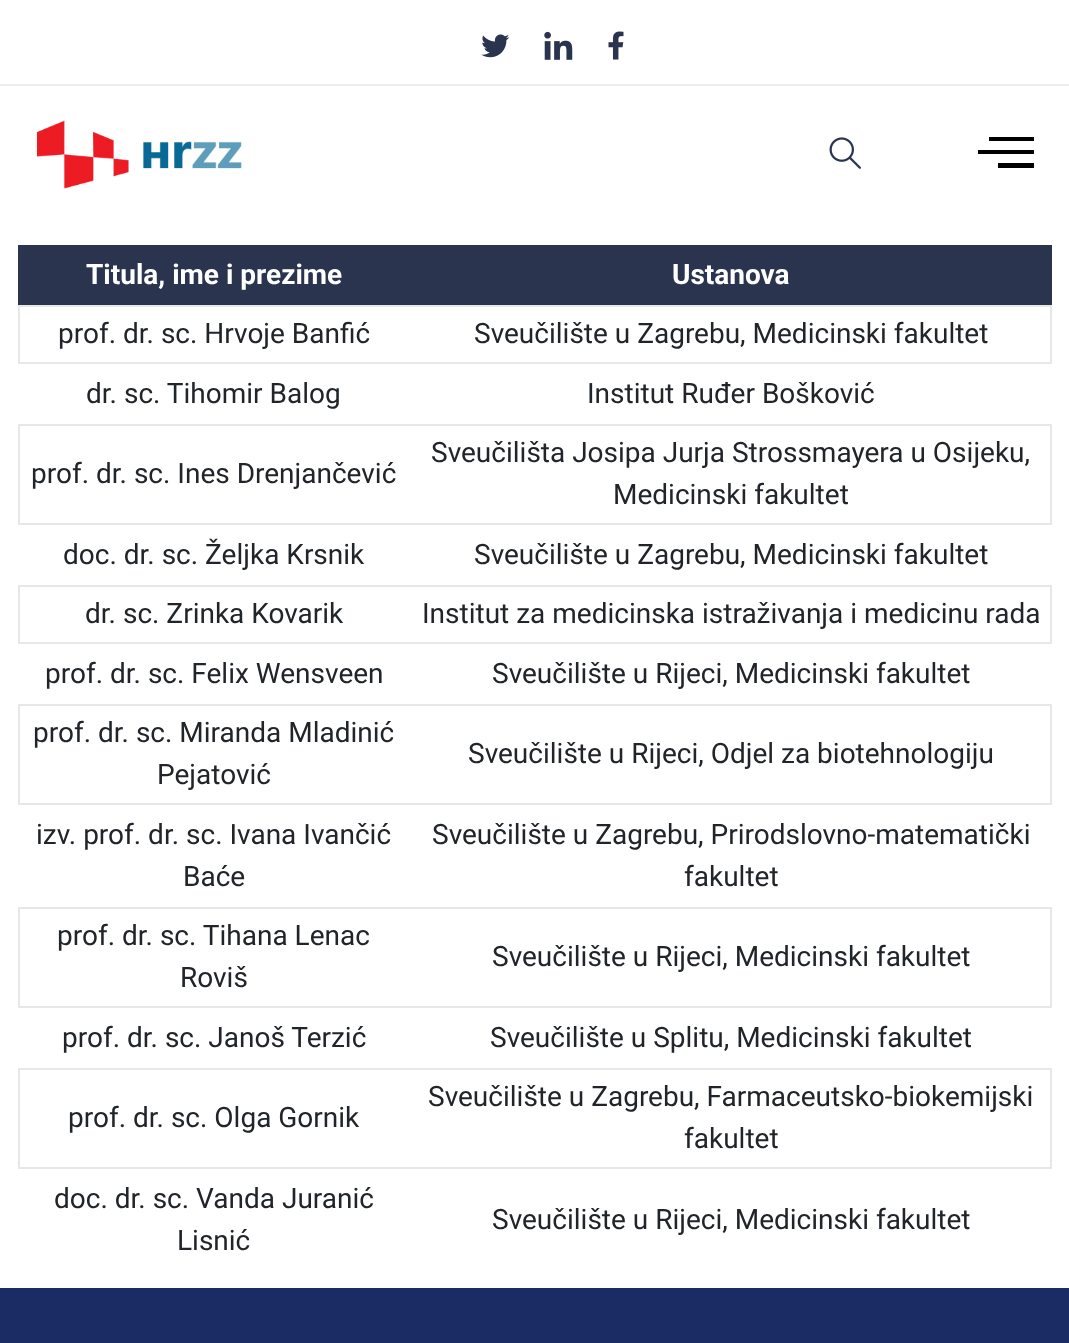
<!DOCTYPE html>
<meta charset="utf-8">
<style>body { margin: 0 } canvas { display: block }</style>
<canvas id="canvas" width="1069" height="1343"></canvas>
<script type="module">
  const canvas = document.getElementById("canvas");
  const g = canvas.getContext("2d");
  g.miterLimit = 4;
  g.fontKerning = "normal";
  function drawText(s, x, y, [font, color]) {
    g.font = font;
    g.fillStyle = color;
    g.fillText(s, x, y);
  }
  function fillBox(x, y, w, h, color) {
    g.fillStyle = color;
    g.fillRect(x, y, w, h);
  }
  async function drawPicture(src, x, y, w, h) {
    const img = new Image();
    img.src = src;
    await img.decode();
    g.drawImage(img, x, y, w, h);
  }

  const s1 = ["bold 28px Roboto", "#FFFFFF"];
  const s2 = ["28px Roboto", "#212529"];

  fillBox(0, 0, 1069, 1343, "#FFFFFF");
  fillBox(0, 84, 1069, 2, "#EDEDED");
  await drawPicture("pic1.png", 481, 34, 29, 24);
  await drawPicture("pic2.png", 544, 31, 29, 29);
  await drawPicture("pic3.png", 608, 31, 16, 29);
  await drawPicture("pic4.png", 36, 120, 206, 69);
  await drawPicture("pic5.png", 829, 137, 32, 32);
  g.fillStyle = "#000000";
  g.beginPath();
  g.moveTo(978, 154);
  g.lineTo(1034, 154);
  g.lineTo(1034, 150);
  g.lineTo(978, 150);
  g.closePath();
  g.moveTo(998, 168);
  g.lineTo(1034, 168);
  g.lineTo(1034, 163);
  g.lineTo(998, 163);
  g.closePath();
  g.moveTo(989, 137);
  g.lineTo(989, 141);
  g.lineTo(1034, 141);
  g.lineTo(1034, 137);
  g.closePath();
  g.fill();
  fillBox(18, 245, 1034, 60, "#2A344F");
  drawText("Titula, ime i prezime", 86, 284, s1);
  drawText("Ustanova", 672, 284, s1);
  g.strokeStyle = "#E7E7E7";
  g.lineWidth = 2;
  g.strokeRect(19, 306, 1032, 57);
  drawText("prof. dr. sc. Hrvoje Banfić", 58, 343, s2);
  drawText("Sveučilište u Zagrebu, Medicinski fakultet", 474, 343, s2);
  drawText("dr. sc. Tihomir Balog", 86, 403, s2);
  drawText("Institut Ruđer Bošković", 587, 403, s2);
  g.strokeRect(19, 425, 1032, 99);
  drawText("prof. dr. sc. Ines Drenjančević", 31, 483, s2);
  drawText("Sveučilišta Josipa Jurja Strossmayera u Osijeku,", 431, 462, s2);
  drawText("Medicinski fakultet", 613, 504, s2);
  drawText("doc. dr. sc. Željka Krsnik", 63, 564, s2);
  drawText("Sveučilište u Zagrebu, Medicinski fakultet", 474, 564, s2);
  g.strokeRect(19, 586, 1032, 57);
  drawText("dr. sc. Zrinka Kovarik", 85, 623, s2);
  drawText("Institut za medicinska istraživanja i medicinu rada", 422, 623, s2);
  drawText("prof. dr. sc. Felix Wensveen", 45, 683, s2);
  drawText("Sveučilište u Rijeci, Medicinski fakultet", 492, 683, s2);
  g.strokeRect(19, 705, 1032, 99);
  drawText("prof. dr. sc. Miranda Mladinić", 33, 742, s2);
  drawText("Pejatović", 157, 784, s2);
  drawText("Sveučilište u Rijeci, Odjel za biotehnologiju", 468, 763, s2);
  drawText("izv. prof. dr. sc. Ivana Ivančić", 36, 844, s2);
  drawText("Baće", 183, 886, s2);
  drawText("Sveučilište u Zagrebu, Prirodslovno-matematički", 432, 844, s2);
  drawText("fakultet", 684, 886, s2);
  g.strokeRect(19, 908, 1032, 99);
  drawText("prof. dr. sc. Tihana Lenac", 57, 945, s2);
  drawText("Roviš", 180, 987, s2);
  drawText("Sveučilište u Rijeci, Medicinski fakultet", 492, 966, s2);
  drawText("prof. dr. sc. Janoš Terzić", 62, 1047, s2);
  drawText("Sveučilište u Splitu, Medicinski fakultet", 490, 1047, s2);
  g.strokeRect(19, 1069, 1032, 99);
  drawText("prof. dr. sc. Olga Gornik", 68, 1127, s2);
  drawText("Sveučilište u Zagrebu, Farmaceutsko-biokemijski", 428, 1106, s2);
  drawText("fakultet", 684, 1148, s2);
  drawText("doc. dr. sc. Vanda Juranić", 54, 1208, s2);
  drawText("Lisnić", 177, 1250, s2);
  drawText("Sveučilište u Rijeci, Medicinski fakultet", 492, 1229, s2);
  fillBox(0, 1288, 1069, 55, "#1B2B63");
</script>
